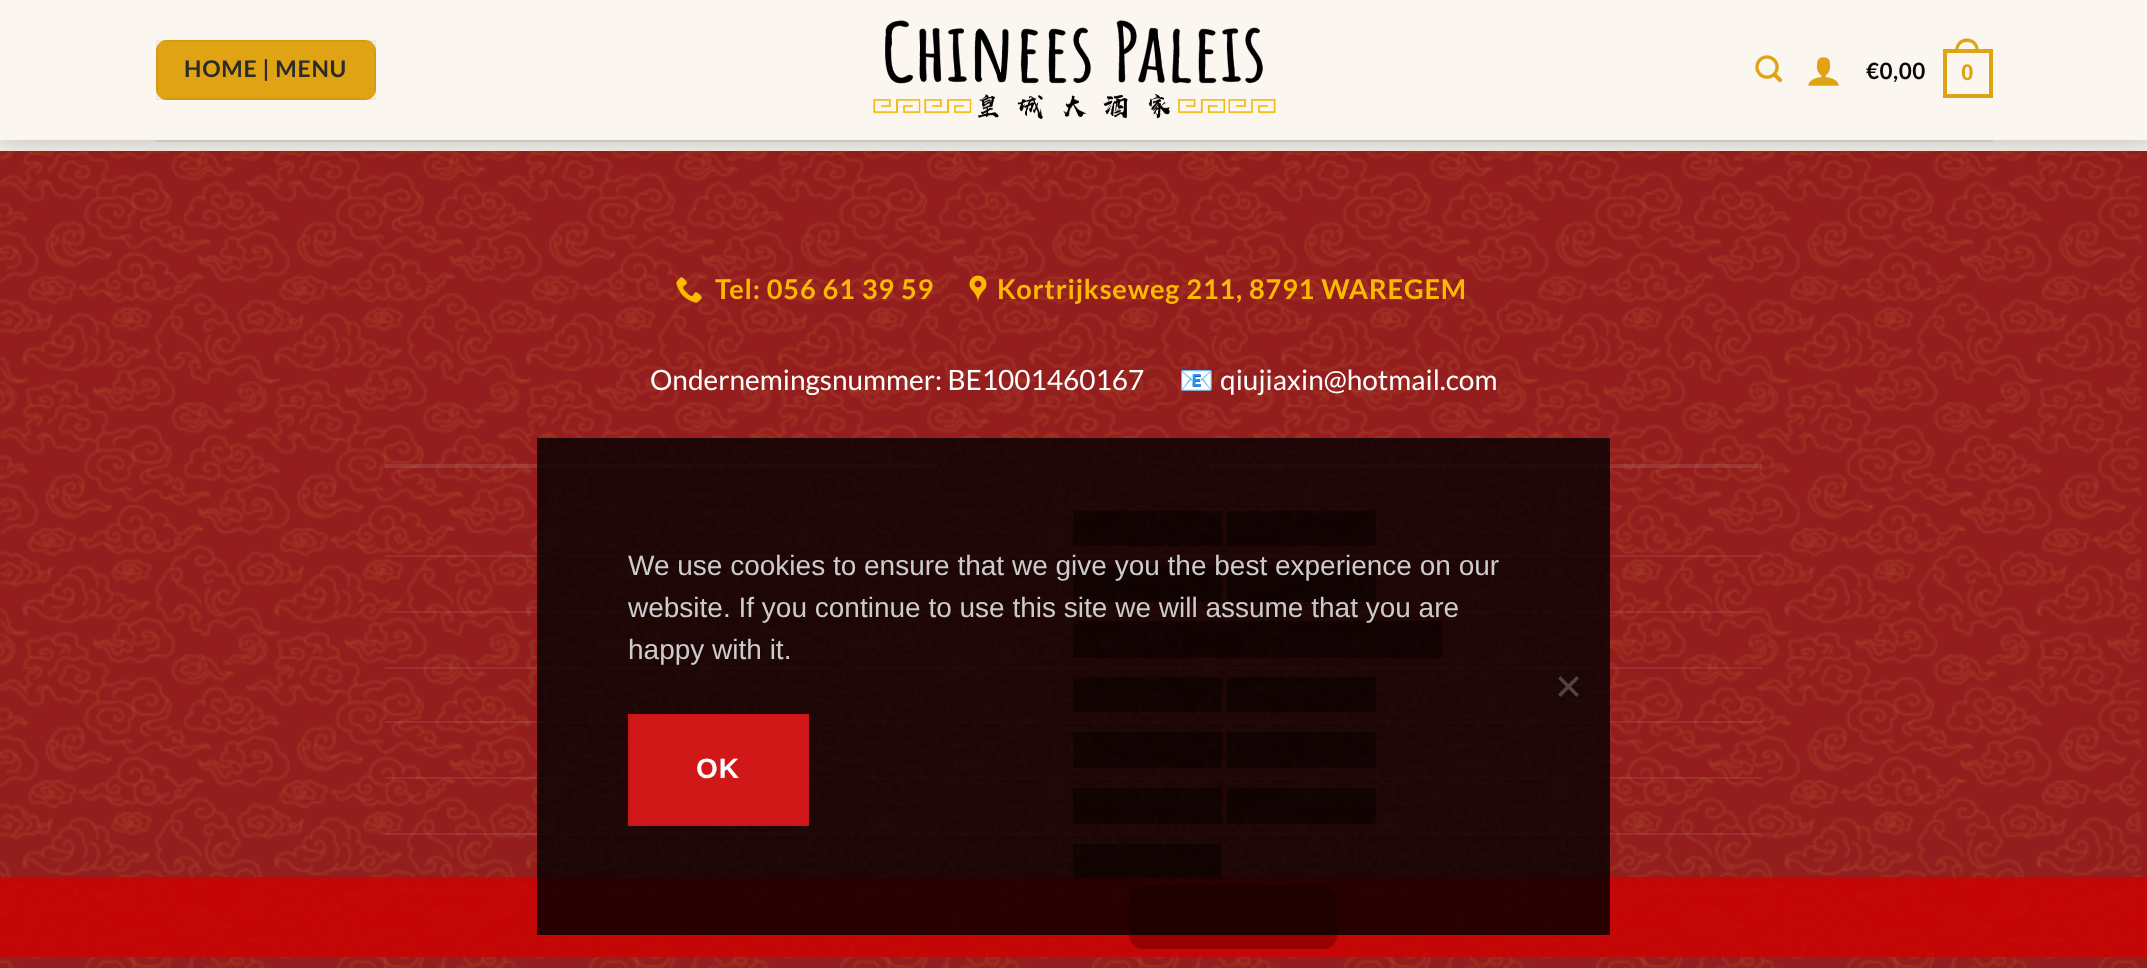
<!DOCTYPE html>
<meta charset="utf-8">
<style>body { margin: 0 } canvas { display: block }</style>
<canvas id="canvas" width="2147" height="968"></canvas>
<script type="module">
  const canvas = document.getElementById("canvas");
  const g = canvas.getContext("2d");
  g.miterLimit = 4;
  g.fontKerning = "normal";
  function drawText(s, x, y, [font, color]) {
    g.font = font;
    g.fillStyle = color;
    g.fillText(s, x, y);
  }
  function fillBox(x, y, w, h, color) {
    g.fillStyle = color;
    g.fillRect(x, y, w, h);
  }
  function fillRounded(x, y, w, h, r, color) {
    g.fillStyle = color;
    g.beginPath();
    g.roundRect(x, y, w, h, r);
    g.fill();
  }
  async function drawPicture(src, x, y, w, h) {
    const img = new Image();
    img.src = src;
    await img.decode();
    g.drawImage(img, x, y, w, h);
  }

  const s1 = ["bold 23px Lato", "#2B2B2B"];
  const s2 = ["bold 22.5px Lato", "#0A0A0A"];
  const s3 = ["bold 22.5px Liberation Sans", "#E0A314"];
  const s4 = ["bold 27.2px Lato", "#FCB900"];
  const s5 = ["28px Lato", "#FFFFFF"];
  const s6 = ["28px Noto Color Emoji", "#FFFFFF"];
  const s7 = ["28px Liberation Sans", "#CCCCCC"];
  const s8 = ["bold 28px Liberation Sans", "#FFFFFF"];

  fillBox(0, 0, 2147, 968, "#EFEAE5");
  fillBox(0, 151, 2147, 817, "#941E1E");
  await drawPicture("pic4.png", 0, 150, 2143, 818);
  g.fillStyle = "rgba(0, 0, 0, 0.15)";
  g.filter = "blur(9px)";
  g.beginPath();
  g.rect(2, 2, 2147, 140);
  g.fill();
  g.filter = "none";
  fillBox(0, 0, 2147, 140, "#FBF6EF");
  fillRounded(156, 40, 220, 60, 11, "#E0A314");
  g.strokeStyle = "rgba(0, 0, 0, 0.05)";
  g.lineWidth = 2;
  g.strokeRect(157, 41, 218, 58);
  g.letterSpacing = "0.75px";
  drawText("HOME | MENU", 184, 77, s1);
  await drawPicture("pic1.png", 873, 20, 403, 99);
  await drawPicture("pic2.png", 1755, 55, 28, 28);
  await drawPicture("pic3.png", 1808, 57, 31, 29);
  g.letterSpacing = "0.5px";
  drawText("€0,00", 1866, 79, s2);
  g.strokeStyle = "#E0A314";
  g.lineWidth = 4;
  g.strokeRect(1945, 51, 46, 45);
  g.fillStyle = "#E0A314";
  g.beginPath();
  g.moveTo(1967, 38.5);
  g.bezierCurveTo(1975.5, 38.5, 1979, 45, 1979, 52.5);
  g.lineTo(1955, 52.5);
  g.bezierCurveTo(1955, 45, 1958.5, 38.5, 1967, 38.5);
  g.closePath();
  g.moveTo(1967, 42);
  g.bezierCurveTo(1973.5, 42, 1976, 47, 1976, 52.5);
  g.lineTo(1958, 52.5);
  g.bezierCurveTo(1958, 47, 1960.5, 42, 1967, 42);
  g.closePath();
  g.fill("evenodd");
  drawText("0", 1961, 80, s3);
  fillBox(156, 140, 1837, 2, "#CAC6C2");
  await drawPicture("pic5.png", 676, 277, 26, 26);
  g.letterSpacing = "0.8px";
  drawText("Tel: 056 61 39 59", 715, 299, s4);
  await drawPicture("pic6.png", 969, 275, 18, 28);
  drawText("Kortrijkseweg 211, 8791 WAREGEM", 997, 299, s4);
  g.letterSpacing = "0px";
  drawText("Ondernemingsnummer: BE1001460167", 650, 390, s5);
  drawText("📧", 1179, 390, s6);
  drawText("qiujiaxin@hotmail.com", 1220, 390, s5);
  fillBox(385, 464, 553, 4, "rgba(255, 255, 255, 0.1)");
  fillBox(1209, 464, 553, 4, "rgba(255, 255, 255, 0.1)");
  fillBox(385, 555, 662, 2, "rgba(255, 255, 255, 0.08)");
  fillBox(1047, 555, 715, 2, "rgba(255, 255, 255, 0.08)");
  fillBox(1073, 511, 149, 35, "rgba(0, 0, 0, 0.4)");
  fillBox(1227, 511, 149, 35, "rgba(0, 0, 0, 0.4)");
  fillBox(385, 611, 662, 2, "rgba(255, 255, 255, 0.08)");
  fillBox(1047, 611, 715, 2, "rgba(255, 255, 255, 0.08)");
  fillBox(1073, 565, 149, 37, "rgba(0, 0, 0, 0.4)");
  fillBox(1227, 565, 149, 37, "rgba(0, 0, 0, 0.4)");
  fillBox(385, 667, 662, 2, "rgba(255, 255, 255, 0.08)");
  fillBox(1047, 667, 715, 2, "rgba(255, 255, 255, 0.08)");
  fillBox(1073, 621, 369, 37, "rgba(0, 0, 0, 0.4)");
  fillBox(385, 721, 662, 2, "rgba(255, 255, 255, 0.08)");
  fillBox(1047, 721, 715, 2, "rgba(255, 255, 255, 0.08)");
  fillBox(1073, 677, 149, 35, "rgba(0, 0, 0, 0.4)");
  fillBox(1227, 677, 149, 35, "rgba(0, 0, 0, 0.4)");
  fillBox(385, 777, 662, 2, "rgba(255, 255, 255, 0.08)");
  fillBox(1047, 777, 715, 2, "rgba(255, 255, 255, 0.08)");
  fillBox(1073, 732, 149, 36, "rgba(0, 0, 0, 0.4)");
  fillBox(1227, 732, 149, 36, "rgba(0, 0, 0, 0.4)");
  fillBox(385, 833, 662, 2, "rgba(255, 255, 255, 0.08)");
  fillBox(1047, 833, 715, 2, "rgba(255, 255, 255, 0.08)");
  fillBox(1073, 788, 149, 36, "rgba(0, 0, 0, 0.4)");
  fillBox(1227, 788, 149, 36, "rgba(0, 0, 0, 0.4)");
  fillBox(385, 889, 662, 2, "rgba(255, 255, 255, 0.08)");
  fillBox(1047, 889, 715, 2, "rgba(255, 255, 255, 0.08)");
  fillBox(1073, 844, 149, 36, "rgba(0, 0, 0, 0.4)");
  fillBox(0, 877, 2147, 80, "rgba(208, 0, 0, 0.8)");
  fillRounded(1129, 886, 208, 63, 14, "#990000");
  fillBox(537, 438, 1073, 497, "rgba(0, 0, 0, 0.8)");
  drawText("We use cookies to ensure that we give you the best experience on our", 628, 575, s7);
  drawText("website. If you continue to use this site we will assume that you are", 628, 617, s7);
  drawText("happy with it.", 628, 659, s7);
  g.fillStyle = "rgba(128, 128, 128, 0.5)";
  g.beginPath();
  g.moveTo(1576.5, 676);
  g.lineTo(1579, 678.5);
  g.lineTo(1560.5, 697);
  g.lineTo(1558, 694.5);
  g.closePath();
  g.fill();
  g.fillStyle = "#4F4343";
  g.beginPath();
  g.moveTo(1558, 678.5);
  g.lineTo(1560.5, 676);
  g.lineTo(1579, 694.5);
  g.lineTo(1576.5, 697);
  g.closePath();
  g.fill();
  g.fillStyle = "#D11818";
  g.beginPath();
  g.rect(629, 715, 179, 110);
  g.fill();
  g.strokeStyle = "#C71717";
  g.lineWidth = 2;
  g.stroke();
  g.letterSpacing = "1px";
  drawText("OK", 696, 778, s8);
</script>
